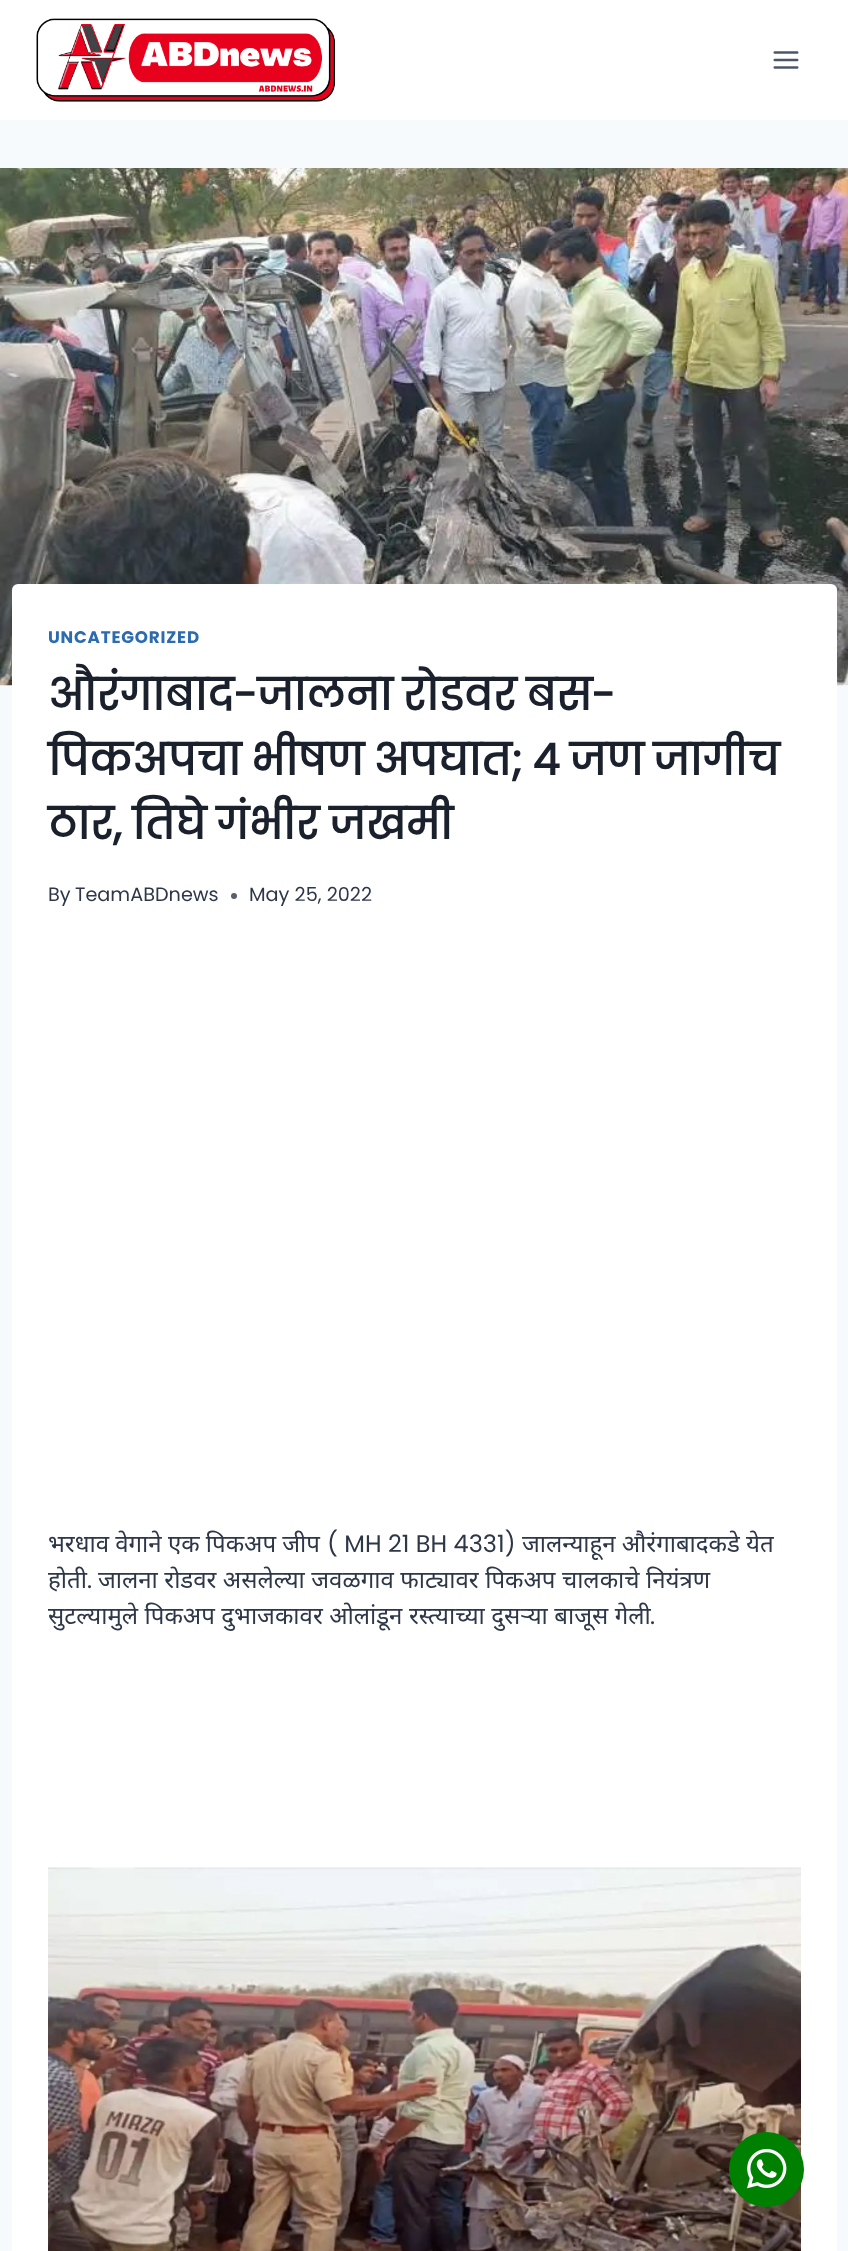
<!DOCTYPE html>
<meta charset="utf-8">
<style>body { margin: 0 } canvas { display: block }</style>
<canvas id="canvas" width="848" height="2251"></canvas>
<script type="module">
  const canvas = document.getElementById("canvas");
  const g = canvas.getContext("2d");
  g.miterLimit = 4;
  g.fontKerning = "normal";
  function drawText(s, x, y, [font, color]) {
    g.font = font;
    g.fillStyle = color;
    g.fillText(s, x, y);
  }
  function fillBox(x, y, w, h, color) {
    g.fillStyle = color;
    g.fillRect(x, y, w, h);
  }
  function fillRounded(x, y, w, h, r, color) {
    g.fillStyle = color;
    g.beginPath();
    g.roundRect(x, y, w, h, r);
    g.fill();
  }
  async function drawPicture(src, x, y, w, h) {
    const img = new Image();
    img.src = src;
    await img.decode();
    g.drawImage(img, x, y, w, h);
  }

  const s1 = ["bold 16.75px Poppins", "#2B6CB0"];
  const s2 = ["bold 43.25px 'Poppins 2'", "#1A202C"];
  const s3 = ["19.25px Poppins", "#2D3748"];
  const s4 = ["24px Noto Sans", "#2D3748"];
  const s5 = ["24px Poppins", "#2D3748"];

  fillBox(0, 0, 848, 2251, "#F7FAFC");
  fillBox(0, 0, 848, 120, "#FFFFFF");
  await drawPicture("pic1.png", 36, 18, 300, 84);
  await drawPicture("pic2.png", 773, 51, 26, 18);
  await drawPicture("pic3.png", 0, 168, 848, 518);
  fillRounded(12, 584, 825, 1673, 6, "#FFFFFF");
  g.letterSpacing = "0.8px";
  drawText("UNCATEGORIZED", 48, 643, s1);
  g.letterSpacing = "0px";
  g.wordSpacing = "-1px";
  drawText("औरंगाबाद-जालना रोडवर बस-", 48, 710, s2);
  g.wordSpacing = "-1.5px";
  drawText("पिकअपचा भीषण अपघात; ४ जण जागीच", 48, 775, s2);
  g.wordSpacing = "-1px";
  drawText("ठार, तिघे गंभीर जखमी", 48, 839, s2);
  g.wordSpacing = "0px";
  drawText("By", 48, 901, s3);
  drawText("TeamABDnews", 75, 901, s3);
  g.fillStyle = "#575F6D";
  g.beginPath();
  g.arc(234, 896, 3, 0, Math.PI * 2);
  g.fill();
  drawText("May 25, 2022", 249, 901, s3);
  drawText("भरधाव वेगाने एक पिकअप जीप", 48, 1552, s4);
  drawText("( MH 21 BH 4331)", 327, 1552, s5);
  drawText("जालन्याहून औरंगाबादकडे येत", 522, 1552, s4);
  drawText("होती", 48, 1588, s4);
  drawText(".", 87, 1588, s5);
  g.wordSpacing = "0.25px";
  drawText("जालना रोडवर असलेल्या जवळगाव फाट्यावर पिकअप चालकाचे नियंत्रण", 98, 1588, s4);
  drawText("सुटल्यामुले पिकअप दुभाजकावर ओलांडून रस्त्याच्या दुसऱ्या बाजूस गेली", 48, 1624, s4);
  g.wordSpacing = "0px";
  drawText(".", 650, 1624, s5);
  await drawPicture("pic4.png", 48, 1867, 753, 384);
  g.fillStyle = "#008000";
  g.beginPath();
  g.arc(766.5, 2169.5, 37.5, 0, Math.PI * 2);
  g.fill();
  await drawPicture("pic5.png", 747, 2148, 40, 41);
</script>
